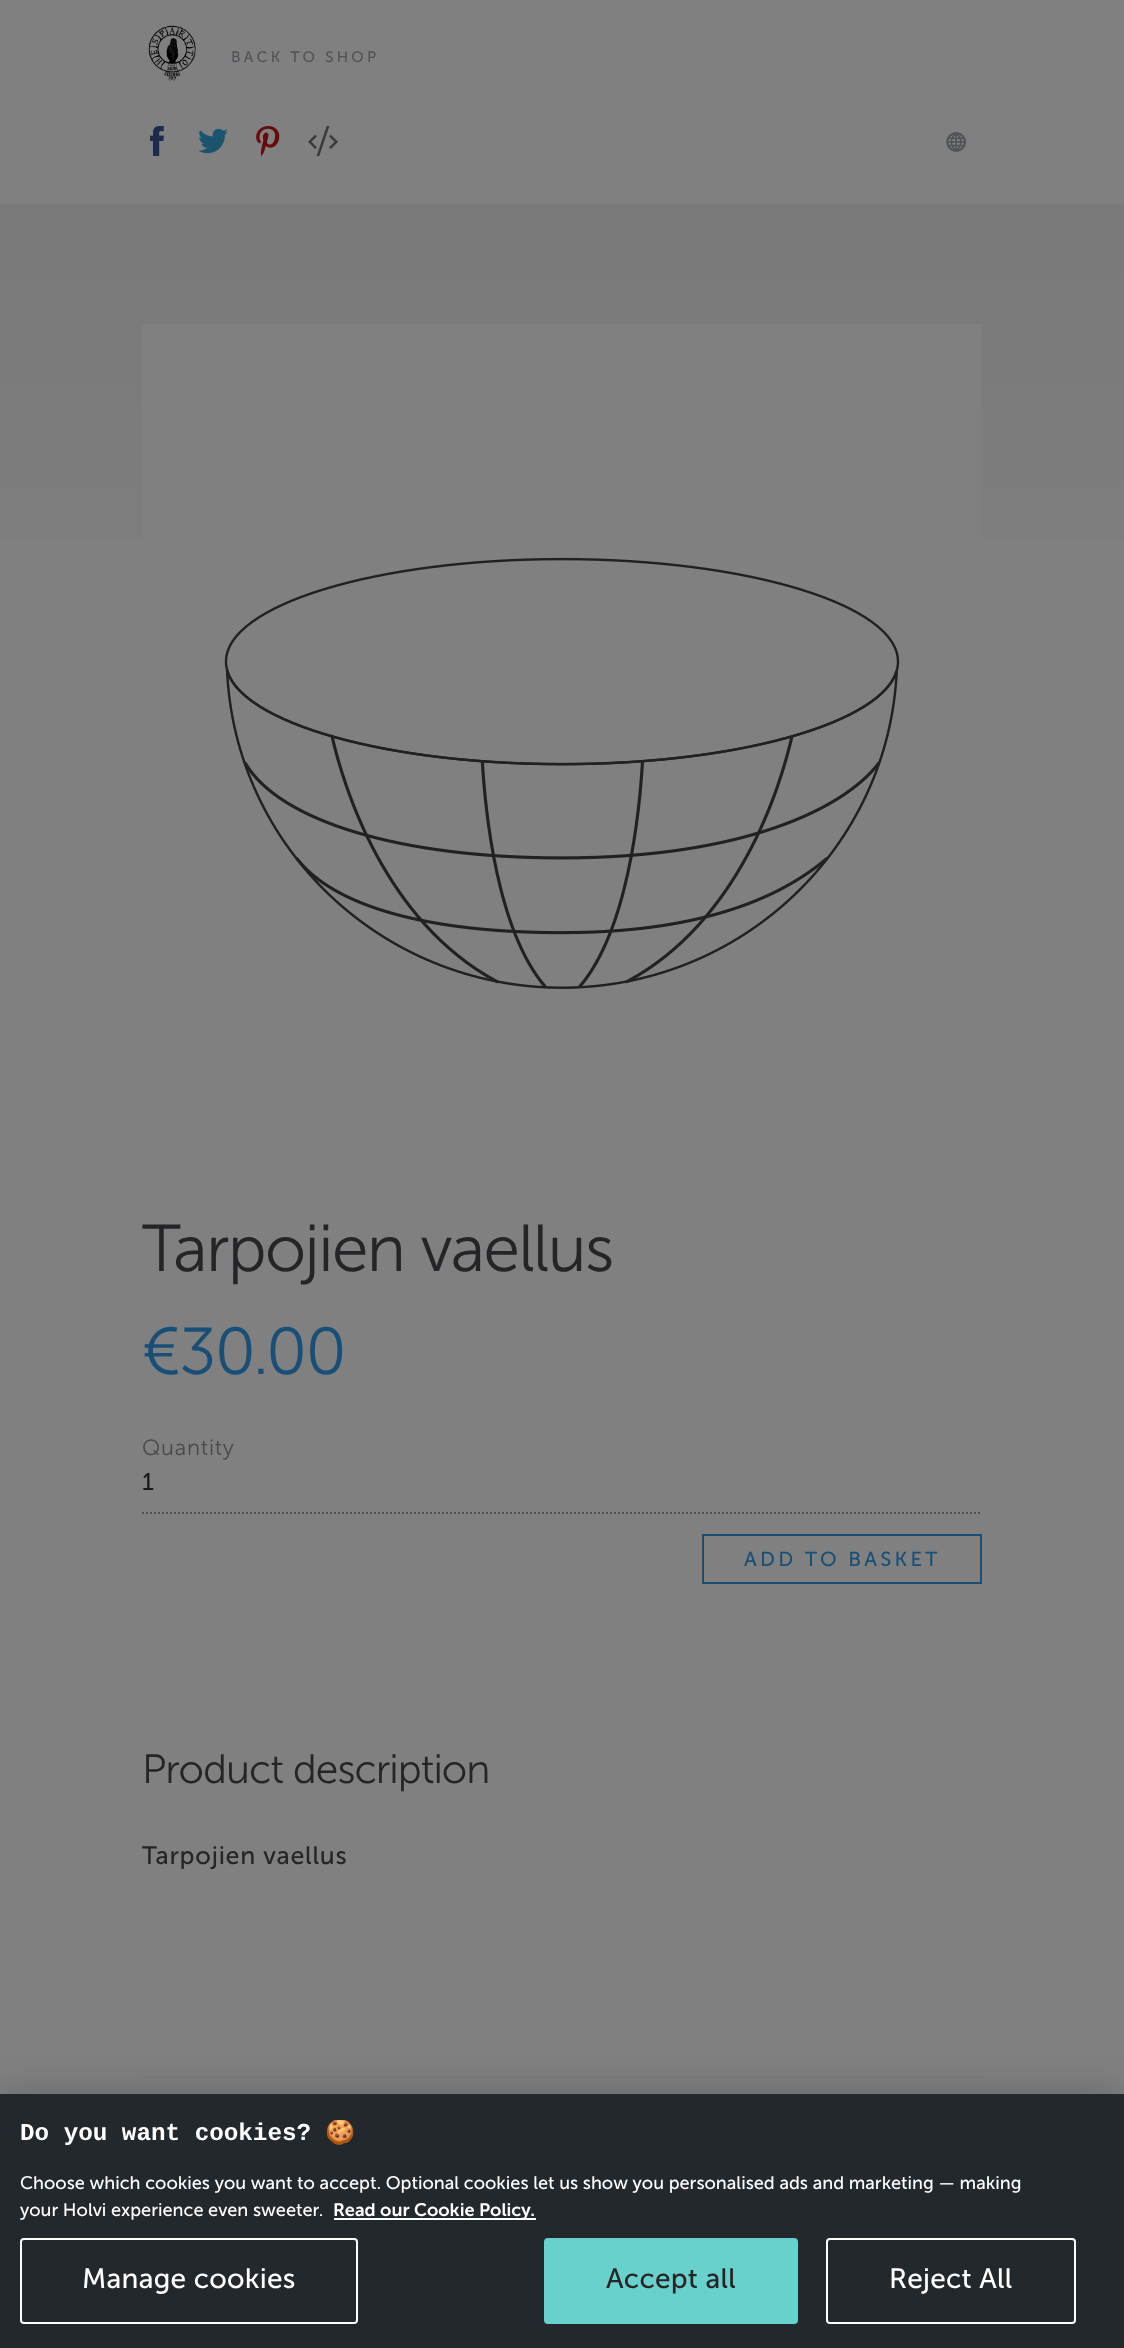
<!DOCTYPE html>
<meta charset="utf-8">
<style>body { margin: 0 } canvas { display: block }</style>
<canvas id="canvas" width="1124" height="2348"></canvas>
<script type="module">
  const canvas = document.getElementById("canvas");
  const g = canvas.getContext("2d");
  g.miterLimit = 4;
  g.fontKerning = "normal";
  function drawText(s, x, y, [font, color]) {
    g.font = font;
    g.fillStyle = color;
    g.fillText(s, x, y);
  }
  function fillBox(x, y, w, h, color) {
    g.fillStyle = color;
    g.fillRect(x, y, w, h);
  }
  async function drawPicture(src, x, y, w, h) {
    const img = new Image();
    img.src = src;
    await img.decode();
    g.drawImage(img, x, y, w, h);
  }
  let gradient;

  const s1 = ["15.1px Museo Sans", "#515255"];
  const s2 = ["300 66px Museo Sans", "#252528"];
  const s3 = ["300 66px Museo Sans", "#194F76"];
  const s4 = ["300 22px Museo Sans", "#49494B"];
  const s5 = ["24.25px Museo Sans", "#1A1A1A"];
  const s6 = ["20.25px Museo Sans", "#194F76"];
  const s7 = ["300 40.75px Museo Sans", "#252528"];
  const s8 = ["25px Museo Sans", "#252528"];
  const s9 = ["bold 24.25px Liberation Mono", "#FFFFFF"];
  const s10 = ["bold 24.25px Noto Color Emoji", "#FFFFFF"];
  const s11 = ["18.15px Museo Sans", "#FFFFFF"];
  const s12 = ["600 18.15px Museo Sans", "#FFFFFF"];
  const s13 = ["28px Museo Sans", "#FFFFFF"];
  const s14 = ["28px Museo Sans", "#252528"];

  fillBox(0, 0, 1124, 2348, "#808080");
  await drawPicture("pic1.png", 148, 25, 48, 57);
  g.letterSpacing = "3.25px";
  drawText("BACK TO SHOP", 231, 62, s1);
  await drawPicture("pic2.png", 150, 126, 14, 30);
  await drawPicture("pic3.png", 198, 128, 30, 26);
  await drawPicture("pic4.png", 256, 126, 24, 30);
  await drawPicture("pic5.png", 308, 126, 30, 30);
  await drawPicture("pic6.png", 946, 132, 20, 20);
  gradient = g.createLinearGradient(562, 0, 562, 748);
  gradient.addColorStop(0, "#777777");
  gradient.addColorStop(1, "#808080");
  g.fillStyle = gradient;
  g.fillRect(0, 204, 1124, 336);
  await drawPicture("pic7.png", 142, 324, 840, 665);
  g.letterSpacing = "-1.6px";
  drawText("Tarpojien vaellus", 142, 1271, s2);
  drawText("€30.00", 142, 1374, s3);
  g.letterSpacing = "0.75px";
  drawText("Quantity", 142, 1455, s4);
  g.beginPath();
  g.moveTo(142, 1513);
  g.lineTo(982, 1513);
  g.strokeStyle = "#515255";
  g.lineWidth = 2;
  g.setLineDash([2, 2]);
  g.stroke();
  drawText("1", 142, 1490, s5);
  g.strokeStyle = "#194F76";
  g.setLineDash([]);
  g.strokeRect(703, 1535, 278, 48);
  g.letterSpacing = "3.25px";
  drawText("ADD TO BASKET", 744, 1566, s6);
  g.letterSpacing = "-1px";
  drawText("Product description", 142, 1783, s7);
  g.letterSpacing = "0.75px";
  drawText("Tarpojien vaellus", 142, 1864, s8);
  fillBox(142, 2076, 840, 2, "#7C7C7C");
  g.fillStyle = "rgba(0, 0, 0, 0.2)";
  g.filter = "blur(18px)";
  g.beginPath();
  g.rect(0, 2094, 1124, 254);
  g.fill();
  g.filter = "none";
  fillBox(0, 2094, 1124, 254, "#23282D");
  g.letterSpacing = "0px";
  drawText("Do you want cookies?", 20, 2140, s9);
  g.save();
  g.beginPath();
  g.rect(20, 2120, 1028, 106);
  g.clip();
  drawText("🍪", 325, 2140, s10);
  g.restore();
  drawText("Choose which cookies you want to accept. Optional cookies let us show you personalised ads and marketing — making", 20, 2189, s11);
  drawText("your Holvi experience even sweeter.", 20, 2216, s11);
  fillBox(334, 2218, 202, 2, "#FFFFFF");
  drawText("Read our Cookie Policy.", 333, 2216, s12);
  g.beginPath();
  g.roundRect(21, 2239, 336, 84, 3);
  g.strokeStyle = "#FFFFFF";
  g.stroke();
  g.letterSpacing = "0.25px";
  drawText("Manage cookies", 82, 2288, s13);
  g.fillStyle = "#69D1CC";
  g.beginPath();
  g.roundRect(545, 2239, 252, 84, 3);
  g.fill();
  g.strokeStyle = "#69D1CC";
  g.stroke();
  drawText("Accept all", 606, 2288, s14);
  g.beginPath();
  g.roundRect(827, 2239, 248, 84, 3);
  g.strokeStyle = "#FFFFFF";
  g.stroke();
  drawText("Reject All", 889, 2288, s13);
</script>
